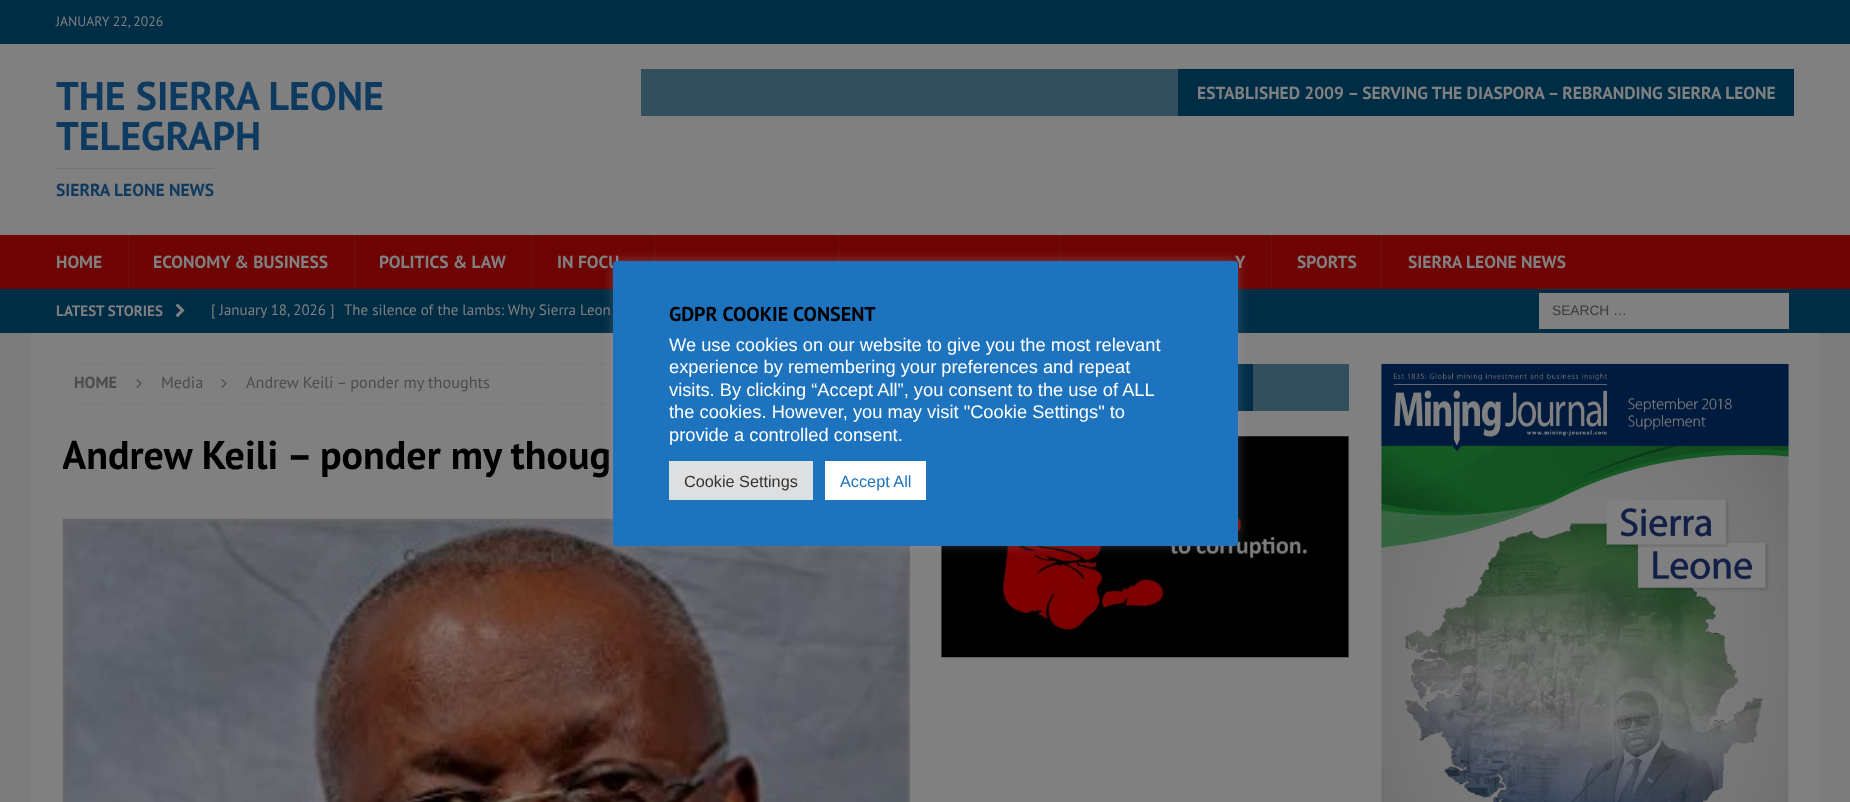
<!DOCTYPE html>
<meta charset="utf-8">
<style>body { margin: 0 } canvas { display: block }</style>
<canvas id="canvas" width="1850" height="802"></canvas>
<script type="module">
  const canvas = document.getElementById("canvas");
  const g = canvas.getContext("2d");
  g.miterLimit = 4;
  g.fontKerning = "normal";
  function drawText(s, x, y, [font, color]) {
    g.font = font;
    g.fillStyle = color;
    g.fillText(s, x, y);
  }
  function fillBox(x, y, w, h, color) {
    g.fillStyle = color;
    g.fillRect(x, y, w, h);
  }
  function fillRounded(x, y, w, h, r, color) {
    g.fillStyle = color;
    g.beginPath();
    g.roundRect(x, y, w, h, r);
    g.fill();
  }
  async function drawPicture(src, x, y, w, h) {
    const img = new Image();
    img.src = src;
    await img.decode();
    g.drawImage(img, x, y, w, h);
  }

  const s1 = ["13.75px PT Sans", "#808080"];
  const s2 = ["bold 40px PT Sans", "#0F3A5F"];
  const s3 = ["bold 17.5px PT Sans", "#0F3A5F"];
  const s4 = ["bold 17.5px PT Sans", "#808080"];
  const s5 = ["bold 15px PT Sans", "#808080"];
  const s6 = ["15px PT Sans", "#808080"];
  const s7 = ["13.75px Liberation Sans", "#3B3B3B"];
  const s8 = ["bold 16.25px PT Sans", "#4C4C4C"];
  const s9 = ["16.25px PT Sans", "#4C4C4C"];
  const s10 = ["bold 40px PT Sans", "#000000"];
  const s11 = ["bold 20px PT Sans", "#000000"];
  const s12 = ["18.3px Liberation Sans", "#FFFFFF"];
  const s13 = ["16.25px Liberation Sans", "#333333"];
  const s14 = ["16.25px Liberation Sans", "#1E73BE"];

  fillBox(0, 0, 1850, 802, "#7C7C7C");
  fillBox(0, 0, 1850, 44, "#002D46");
  drawText("JANUARY 22, 2026", 56, 26, s1);
  fillBox(0, 44, 1850, 191, "#808080");
  drawText("THE SIERRA LEONE", 56, 110, s2);
  drawText("TELEGRAPH", 56, 150, s2);
  fillBox(56, 168, 158, 1, "#737373");
  drawText("SIERRA LEONE NEWS", 56, 196, s3);
  fillBox(641, 69, 537, 47, "#334E5D");
  fillBox(1178, 69, 616, 47, "#002D46");
  drawText("ESTABLISHED 2009 – SERVING THE DIASPORA – REBRANDING SIERRA LEONE", 1197, 99, s4);
  fillBox(0, 235, 1850, 54, "#6F0404");
  drawText("HOME", 56, 268, s4);
  fillBox(128, 235, 1, 54, "#701111");
  drawText("ECONOMY & BUSINESS", 153, 268, s4);
  fillBox(354, 235, 1, 54, "#701111");
  drawText("POLITICS & LAW", 379, 268, s4);
  fillBox(531, 235, 1, 54, "#701111");
  drawText("IN FOCU", 557, 268, s4);
  fillBox(654, 235, 1, 26, "#701111");
  fillBox(838, 235, 1, 26, "#701111");
  fillBox(1059, 235, 1, 26, "#701111");
  drawText("Y", 1235, 268, s4);
  fillBox(1271, 235, 1, 54, "#701111");
  drawText("SPORTS", 1297, 268, s4);
  fillBox(1381, 235, 1, 54, "#701111");
  drawText("SIERRA LEONE NEWS", 1408, 268, s4);
  fillBox(0, 289, 1850, 44, "#002D46");
  drawText("LATEST STORIES", 56, 316, s5);
  await drawPicture("pic1.png", 175, 303, 10, 15);
  drawText("[ January 18, 2026 ]", 211, 315, s6);
  drawText("The silence of the lambs: Why Sierra Leon", 344, 315, s6);
  fillBox(1539, 293, 250, 36, "#808080");
  drawText("SEARCH …", 1552, 315, s7);
  fillBox(31, 333, 1789, 469, "#808080");
  g.save();
  g.beginPath();
  g.rect(63, 364, 847, 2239);
  g.clip();
  g.beginPath();
  g.moveTo(62.5, 364.5);
  g.lineTo(910, 364.5);
  g.strokeStyle = "#767676";
  g.lineWidth = 1.2;
  g.setLineDash([1.25, 1.25]);
  g.stroke();
  g.restore();
  g.beginPath();
  g.moveTo(62.5, 404.5);
  g.lineTo(910, 404.5);
  g.strokeStyle = "#767676";
  g.lineWidth = 1.2;
  g.setLineDash([1.25, 1.25]);
  g.stroke();
  drawText("HOME", 74, 388, s8);
  await drawPicture("pic2.png", 136, 379, 6, 9);
  drawText("Media", 161, 388, s9);
  await drawPicture("pic2.png", 221, 379, 6, 9);
  drawText("Andrew Keili – ponder my thoughts", 246, 388, s9);
  g.save();
  g.beginPath();
  g.rect(63, 364, 847, 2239);
  g.clip();
  drawText("Andrew Keili – ponder my thoug", 62, 469, s10);
  g.restore();
  await drawPicture("pic3.png", 62, 518, 848, 284);
  fillBox(1253, 364, 96, 47, "#334E5D");
  fillBox(1238, 364, 15, 47, "#002D46");
  await drawPicture("pic4.png", 941, 436, 408, 222);
  await drawPicture("pic5.png", 1381, 363, 408, 439);
  g.fillStyle = "rgba(172, 171, 171, 0.3)";
  g.filter = "blur(6px)";
  g.beginPath();
  g.roundRect(613, 260, 625, 285, 4);
  g.fill();
  g.filter = "none";
  fillRounded(613, 261, 625, 285, 4, "#1E73BE");
  drawText("GDPR COOKIE CONSENT", 669, 321, s11);
  drawText("We use cookies on our website to give you the most relevant", 669, 351, s12);
  drawText("experience by remembering your preferences and repeat", 669, 373, s12);
  drawText("visits. By clicking “Accept All”, you consent to the use of ALL", 669, 396, s12);
  drawText("the cookies. However, you may visit \"Cookie Settings\" to", 669, 418, s12);
  drawText("provide a controlled consent.", 669, 441, s12);
  fillBox(669, 461, 144, 39, "#DEDFE0");
  drawText("Cookie Settings", 684, 487, s13);
  fillBox(825, 461, 101, 39, "#FFFFFF");
  drawText("Accept All", 840, 487, s14);
</script>
